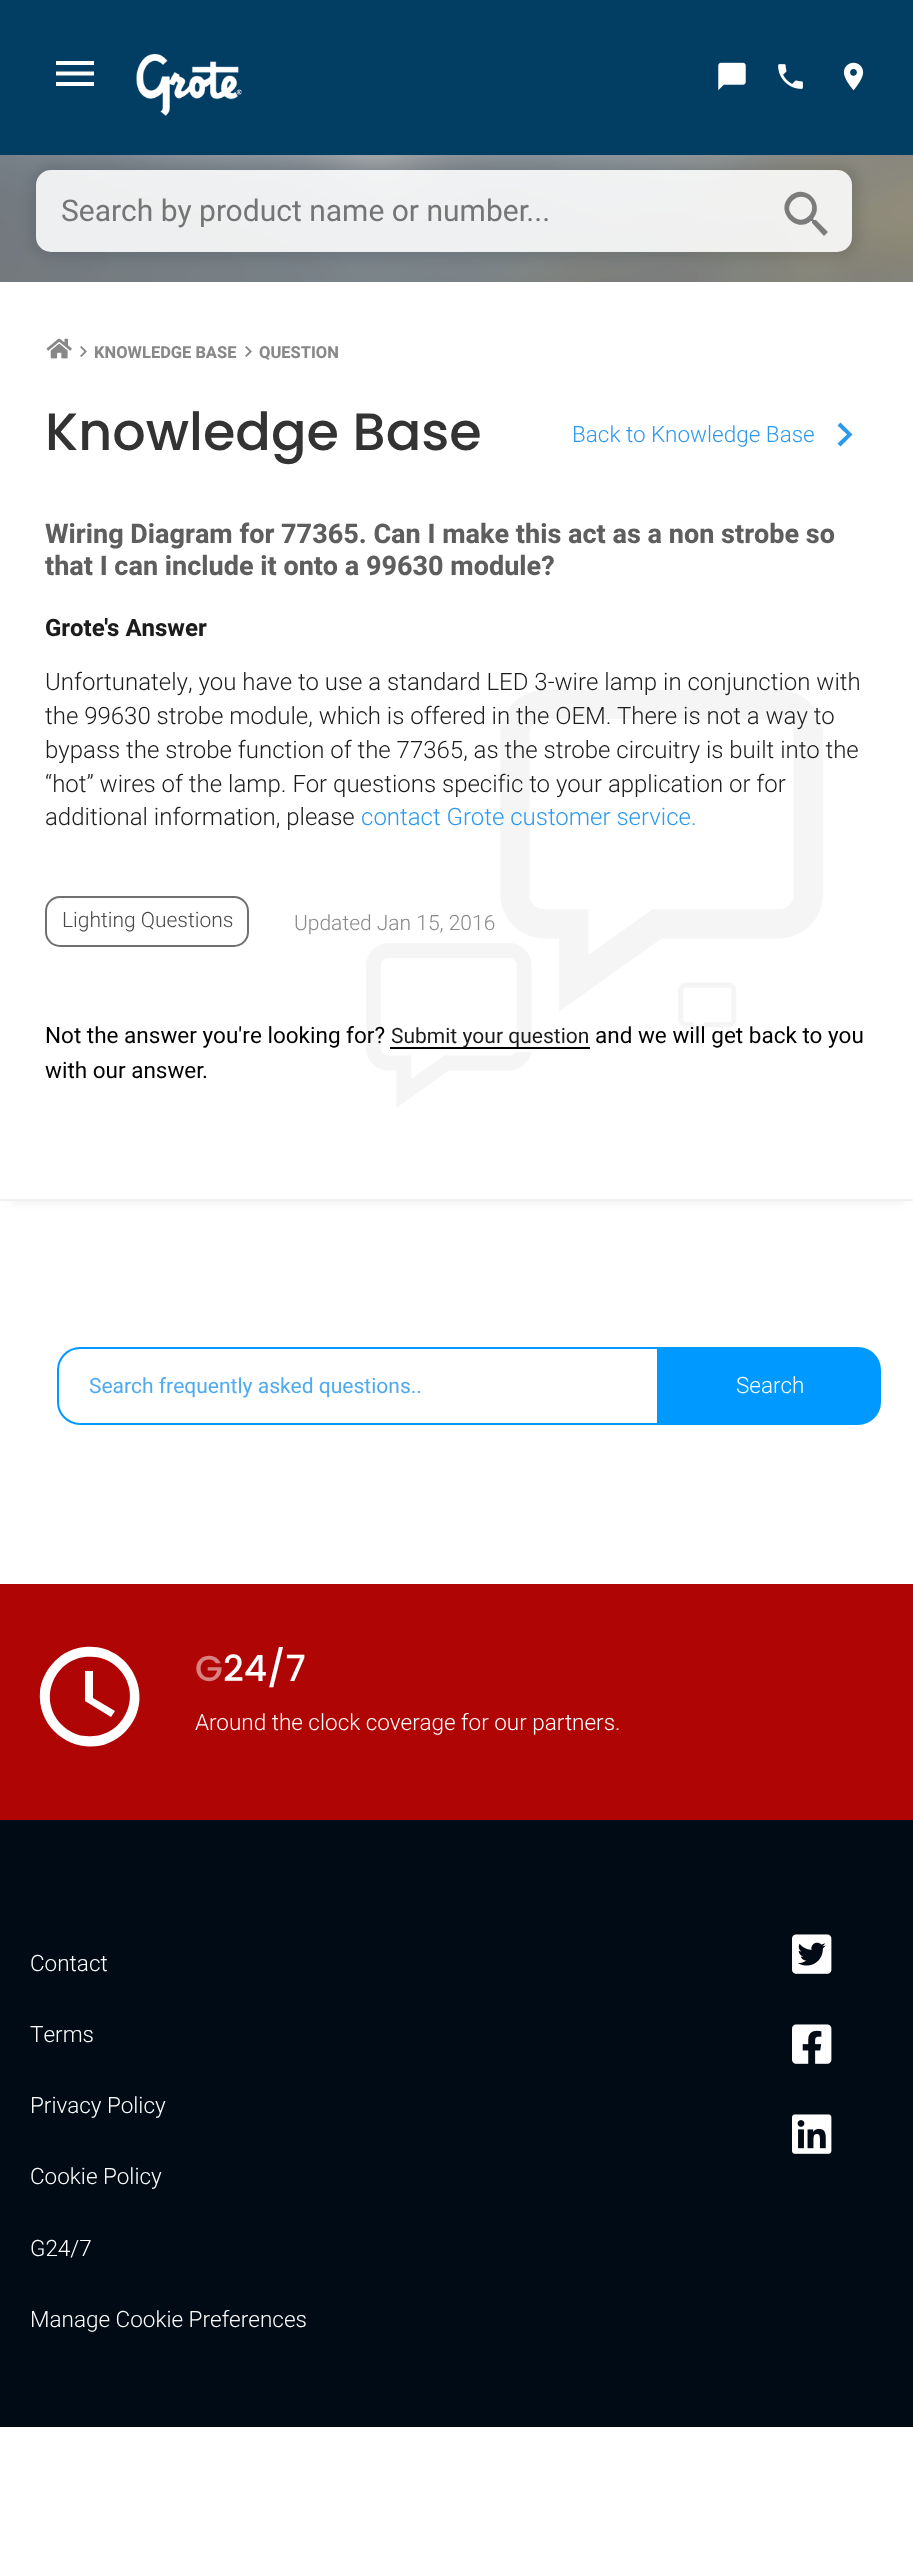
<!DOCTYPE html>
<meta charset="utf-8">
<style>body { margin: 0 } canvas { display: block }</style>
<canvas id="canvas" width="913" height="2558"></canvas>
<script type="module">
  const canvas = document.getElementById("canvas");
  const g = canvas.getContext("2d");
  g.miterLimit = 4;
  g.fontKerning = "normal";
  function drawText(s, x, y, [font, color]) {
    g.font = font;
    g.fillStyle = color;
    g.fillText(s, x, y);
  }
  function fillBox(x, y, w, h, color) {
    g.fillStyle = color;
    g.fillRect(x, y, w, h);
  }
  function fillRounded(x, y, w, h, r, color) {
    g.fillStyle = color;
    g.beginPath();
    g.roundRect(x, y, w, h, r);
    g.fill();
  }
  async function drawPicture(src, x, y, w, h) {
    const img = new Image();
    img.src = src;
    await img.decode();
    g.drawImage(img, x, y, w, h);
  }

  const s1 = ["30px Heebo", "#757575"];
  const s2 = ["bold 16.5px Heebo", "#888888"];
  const s3 = ["500 52.5px Poppins", "#333333"];
  const s4 = ["300 22.5px Heebo", "#2C99ED"];
  const s5 = ["bold 27px Heebo", "#5E5E5E"];
  const s6 = ["bold 24px Heebo", "#1C1C1C"];
  const s7 = ["300 24px Heebo", "#1C1C1C"];
  const s8 = ["300 24px Heebo", "#2C99ED"];
  const s9 = ["300 21px Heebo", "#484848"];
  const s10 = ["300 21px Heebo", "#888888"];
  const s11 = ["22.5px Heebo", "#000000"];
  const s12 = ["21px Heebo", "#1C1C1C"];
  const s13 = ["21px Heebo", "#4FAAF0"];
  const s14 = ["300 22.5px Heebo", "#FFFFFF"];
  const s15 = ["500 36px Poppins", "#D88282"];
  const s16 = ["500 36px Poppins", "#FFFFFF"];

  fillBox(0, 0, 913, 2558, "#FFFFFF");
  fillBox(0, 155, 913, 127, "#CCCCCC");
  await drawPicture("pic1.png", 366, 690, 457, 418);
  await drawPicture("pic6.png", 0, 155, 913, 127);
  g.save();
  g.beginPath();
  g.moveTo(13, 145);
  g.lineTo(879, 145);
  g.lineTo(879, 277);
  g.lineTo(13, 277);
  g.closePath();
  g.moveTo(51, 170);
  g.lineTo(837, 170);
  g.bezierCurveTo(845.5, 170, 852, 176.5, 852, 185);
  g.lineTo(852, 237);
  g.bezierCurveTo(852, 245.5, 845.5, 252, 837, 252);
  g.lineTo(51, 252);
  g.bezierCurveTo(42.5, 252, 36, 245.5, 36, 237);
  g.lineTo(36, 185);
  g.bezierCurveTo(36, 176.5, 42.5, 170, 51, 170);
  g.closePath();
  g.clip("evenodd");
  g.fillStyle = "rgba(0, 0, 0, 0.1)";
  g.filter = "blur(6px)";
  g.beginPath();
  g.roundRect(32, 164, 828, 94, 21);
  g.fill();
  g.filter = "none";
  g.restore();
  fillBox(0, 0, 913, 155, "#023D63");
  g.fillStyle = "#FFFFFF";
  g.beginPath();
  g.moveTo(56, 61);
  g.lineTo(94, 61);
  g.lineTo(94, 65);
  g.lineTo(56, 65);
  g.closePath();
  g.moveTo(56, 75.5);
  g.lineTo(56, 71.5);
  g.lineTo(94, 71.5);
  g.lineTo(94, 75.5);
  g.closePath();
  g.moveTo(56, 86);
  g.lineTo(56, 82);
  g.lineTo(94, 82);
  g.lineTo(94, 86);
  g.closePath();
  g.fill();
  await drawPicture("pic2.png", 136, 54, 106, 62);
  await drawPicture("pic3.png", 718, 62, 28, 29);
  await drawPicture("pic4.png", 778, 64, 25, 25);
  await drawPicture("pic5.png", 843, 62, 21, 29);
  fillRounded(36, 170, 816, 82, 15, "rgba(255, 255, 255, 0.88)");
  drawText("Search by product name or number...", 61, 221, s1);
  g.fillStyle = "#7C7C7C";
  g.beginPath();
  g.moveTo(793, 216);
  g.bezierCurveTo(803, 227, 819, 211, 809, 200);
  g.bezierCurveTo(798, 190, 782, 206, 793, 216);
  g.closePath();
  g.moveTo(816, 220);
  g.lineTo(828, 232);
  g.lineTo(824, 236);
  g.lineTo(812, 223);
  g.lineTo(812, 221);
  g.lineTo(811, 221);
  g.bezierCurveTo(796, 234, 775, 211, 789, 197);
  g.bezierCurveTo(804, 182, 826, 203, 813, 219);
  g.lineTo(814, 220);
  g.closePath();
  g.fill();
  g.save();
  g.beginPath();
  g.rect(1, 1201, 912, 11);
  g.clip();
  g.fillStyle = "#F0F0F0";
  g.filter = "blur(4.5px)";
  g.beginPath();
  g.rect(9, 303, 896, 900);
  g.fill();
  g.filter = "none";
  g.restore();
  fillBox(0, 1199, 913, 2, "#F0F0F0");
  await drawPicture("pic7.png", 46, 338, 26, 21);
  await drawPicture("pic8.png", 80, 346, 7, 11);
  drawText("KNOWLEDGE BASE", 94, 358, s2);
  await drawPicture("pic8.png", 245, 346, 7, 11);
  drawText("QUESTION", 259, 358, s2);
  drawText("Knowledge Base", 45, 450, s3);
  drawText("Back to Knowledge Base", 572, 442, s4);
  g.beginPath();
  g.moveTo(837.5, 443.5);
  g.lineTo(847, 434.5);
  g.lineTo(837.5, 425.5);
  g.lineTo(840.5, 422.5);
  g.lineTo(852.5, 434.5);
  g.lineTo(840.5, 446.5);
  g.closePath();
  g.fill();
  drawText("Wiring Diagram for 77365. Can I make this act as a non strobe so", 45, 543, s5);
  drawText("that I can include it onto a 99630 module?", 45, 575, s5);
  drawText("Grote's Answer", 45, 636, s6);
  drawText("Unfortunately, you have to use a standard LED 3-wire lamp in conjunction with", 45, 690, s7);
  drawText("the 99630 strobe module, which is offered in the OEM. There is not a way to", 45, 724, s7);
  drawText("bypass the strobe function of the 77365, as the strobe circuitry is built into the", 45, 758, s7);
  drawText("“hot” wires of the lamp. For questions specific to your application or for", 45, 792, s7);
  drawText("additional information, please", 45, 825, s7);
  drawText("contact Grote customer service.", 361, 825, s8);
  g.beginPath();
  g.roundRect(46, 897, 202, 49, 14);
  g.strokeStyle = "#707070";
  g.lineWidth = 2;
  g.stroke();
  drawText("Lighting Questions", 62, 927, s9);
  drawText("Updated Jan 15, 2016", 294, 930, s10);
  drawText("Not the answer you're looking for?", 45, 1043, s11);
  fillBox(390, 1047, 200, 2, "#000000");
  drawText("Submit your question", 391, 1043, s12);
  fillBox(516, 1049, 16, 3, "#FFFFFF");
  drawText("and we will get back to you", 595, 1043, s11);
  drawText("with our answer.", 45, 1078, s11);
  g.beginPath();
  g.roundRect(58, 1348, 600, 76, [22, 0, 0, 22]);
  g.strokeStyle = "#0099FF";
  g.stroke();
  drawText("Search frequently asked questions..", 89, 1393, s13);
  g.fillStyle = "#0099FF";
  g.beginPath();
  g.roundRect(660, 1348, 220, 76, [0, 22, 22, 0]);
  g.fill();
  g.stroke();
  drawText("Search", 736, 1393, s14);
  fillBox(0, 1584, 913, 236, "#B00505");
  g.fillStyle = "#FFFFFF";
  g.beginPath();
  g.moveTo(93, 1671);
  g.lineTo(93, 1698);
  g.lineTo(115, 1711);
  g.lineTo(111, 1717);
  g.lineTo(85, 1701);
  g.lineTo(85, 1671);
  g.closePath();
  g.moveTo(62, 1725);
  g.bezierCurveTo(68, 1731, 77, 1736, 86, 1736);
  g.bezierCurveTo(123, 1740, 145, 1695, 118, 1668);
  g.bezierCurveTo(112, 1662, 103, 1657, 94, 1657);
  g.bezierCurveTo(57, 1653, 35, 1698, 62, 1725);
  g.closePath();
  g.moveTo(55, 1661);
  g.bezierCurveTo(63, 1653, 73, 1648, 85, 1647);
  g.bezierCurveTo(131, 1643, 158, 1699, 125, 1732);
  g.bezierCurveTo(92, 1765, 36, 1738, 40, 1691);
  g.bezierCurveTo(41, 1680, 47, 1669, 55, 1661);
  g.closePath();
  g.fill();
  drawText("G", 195, 1681, s15);
  drawText("24/7", 223, 1681, s16);
  drawText("Around the clock coverage for our partners.", 195, 1730, s14);
  fillBox(0, 1820, 913, 607, "#000B15");
  drawText("Contact", 30, 1971, s14);
  drawText("Terms", 30, 2042, s14);
  drawText("Privacy Policy", 30, 2113, s14);
  drawText("Cookie Policy", 30, 2184, s14);
  drawText("G24/7", 30, 2256, s14);
  drawText("Manage Cookie Preferences", 30, 2327, s14);
  await drawPicture("pic9.png", 792, 1934, 40, 40);
  await drawPicture("pic10.png", 792, 2024, 40, 40);
  await drawPicture("pic11.png", 792, 2114, 40, 40);
</script>
